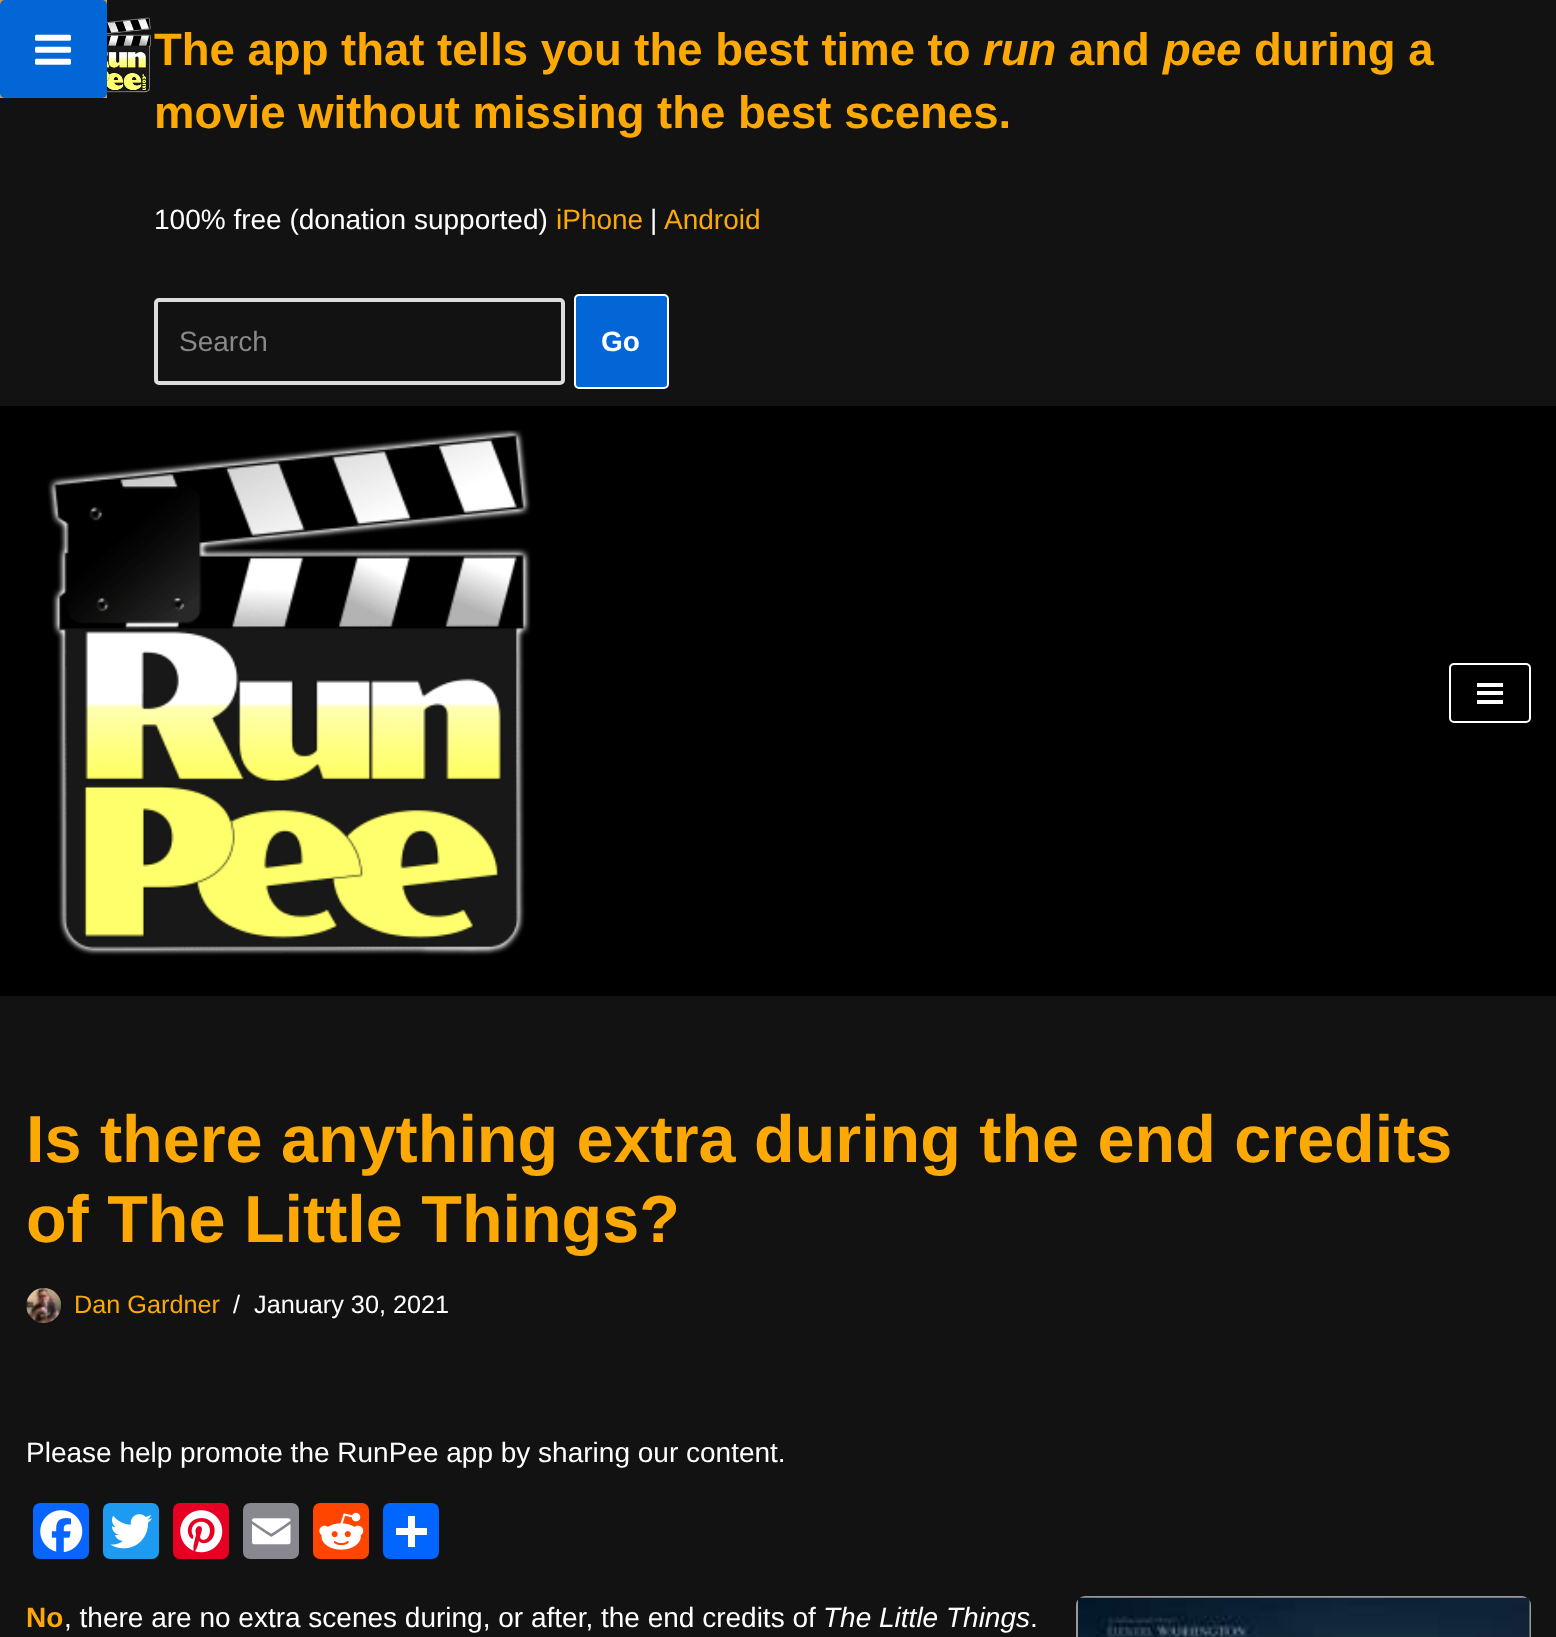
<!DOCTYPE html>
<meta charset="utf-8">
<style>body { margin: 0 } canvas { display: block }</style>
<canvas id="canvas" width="1556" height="1637"></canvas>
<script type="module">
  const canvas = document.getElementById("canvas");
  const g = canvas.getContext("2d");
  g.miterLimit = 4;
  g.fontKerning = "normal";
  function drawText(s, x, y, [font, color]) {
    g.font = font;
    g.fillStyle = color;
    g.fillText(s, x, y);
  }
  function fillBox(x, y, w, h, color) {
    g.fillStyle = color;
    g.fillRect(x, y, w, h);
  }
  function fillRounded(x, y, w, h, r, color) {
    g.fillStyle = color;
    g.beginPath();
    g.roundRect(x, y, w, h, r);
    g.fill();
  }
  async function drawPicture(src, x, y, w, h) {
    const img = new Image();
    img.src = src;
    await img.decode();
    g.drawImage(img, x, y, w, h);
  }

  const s1 = ["bold 45.5px Liberation Sans", "#FCA905"];
  const s2 = ["italic bold 45.5px Liberation Sans", "#FCA905"];
  const s3 = ["28px Liberation Sans", "#FFFFFF"];
  const s4 = ["28px Liberation Sans", "#FCA905"];
  const s5 = ["28px Liberation Sans", "#898989"];
  const s6 = ["bold 28px Liberation Sans", "#FFFFFF"];
  const s7 = ["bold 66.5px Liberation Sans", "#FCA905"];
  const s8 = ["25.25px Liberation Sans", "#FCA905"];
  const s9 = ["25.25px Liberation Sans", "#FFFFFF"];
  const s10 = ["bold 28px Liberation Sans", "#FCA905"];
  const s11 = ["italic 28px Liberation Sans", "#FFFFFF"];

  fillBox(0, 0, 1556, 1637, "#121212");
  fillBox(0, 0, 107, 98, "#DD9933");
  fillRounded(0, 0, 107, 98, 5, "#0366D6");
  await drawPicture("pic1.png", 35, 34, 36, 31);
  await drawPicture("pic2.png", 107, 17, 44, 76);
  drawText("The app that tells you the best time to", 154, 65, s1);
  drawText("run", 983, 65, s2);
  drawText("and", 1069, 65, s1);
  drawText("pee", 1163, 65, s2);
  drawText("during a", 1254, 65, s1);
  drawText("movie without missing the best scenes.", 154, 128, s1);
  drawText("100% free (donation supported)", 154, 229, s3);
  drawText("iPhone", 556, 229, s4);
  drawText("|", 650, 229, s3);
  drawText("Android", 664, 229, s4);
  g.beginPath();
  g.roundRect(156, 300, 407, 83, 3);
  g.strokeStyle = "#DDDDDD";
  g.lineWidth = 4;
  g.stroke();
  drawText("Search", 179, 351, s5);
  g.fillStyle = "#0366D6";
  g.beginPath();
  g.roundRect(575, 295, 93, 93, 4);
  g.fill();
  g.strokeStyle = "#FFFFFF";
  g.lineWidth = 2;
  g.stroke();
  drawText("Go", 601, 351, s6);
  fillBox(0, 406, 1556, 590, "#000000");
  await drawPicture("pic3.png", 47, 430, 484, 526);
  g.beginPath();
  g.roundRect(1450, 664, 80, 58, 4);
  g.stroke();
  fillBox(1477, 683, 26, 4, "#FFFFFF");
  fillBox(1477, 691, 26, 4, "#FFFFFF");
  fillBox(1477, 700, 26, 4, "#FFFFFF");
  drawText("Is there anything extra during the end credits", 26, 1162, s7);
  drawText("of The Little Things?", 26, 1242, s7);
  await drawPicture("pic4.png", 26, 1288, 36, 35);
  drawText("Dan Gardner", 74, 1313, s8);
  drawText("/", 233, 1313, s9);
  drawText("January 30, 2021", 254, 1313, s9);
  drawText("Please help promote the RunPee app by sharing our content.", 26, 1462, s3);
  fillRounded(33, 1503, 56, 56, 7, "#0866FF");
  await drawPicture("pic5.png", 40, 1510, 43, 42);
  fillRounded(103, 1503, 56, 56, 7, "#1D9BF0");
  await drawPicture("pic6.png", 110, 1514, 43, 35);
  fillRounded(173, 1503, 56, 56, 7, "#E60023");
  await drawPicture("pic7.png", 180, 1510, 43, 43);
  fillRounded(243, 1503, 56, 56, 7, "#888990");
  await drawPicture("pic8.png", 252, 1518, 39, 27);
  fillRounded(313, 1503, 56, 56, 7, "#FF4500");
  await drawPicture("pic9.png", 319, 1512, 45, 38);
  fillRounded(383, 1503, 56, 56, 7, "#0166FF");
  fillBox(408, 1516, 7, 31, "#FFFFFF");
  fillBox(396, 1528, 31, 7, "#FFFFFF");
  drawText("No", 26, 1627, s10);
  g.beginPath();
  g.roundRect(1077, 1597, 453, 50, 8);
  g.strokeStyle = "#999999";
  g.stroke();
  await drawPicture("pic10.png", 1078, 1597, 452, 40);
  drawText(", there are no extra scenes during, or after, the end credits of", 64, 1627, s3);
  drawText("The Little Things", 823, 1627, s11);
  drawText(".", 1030, 1627, s3);
</script>
